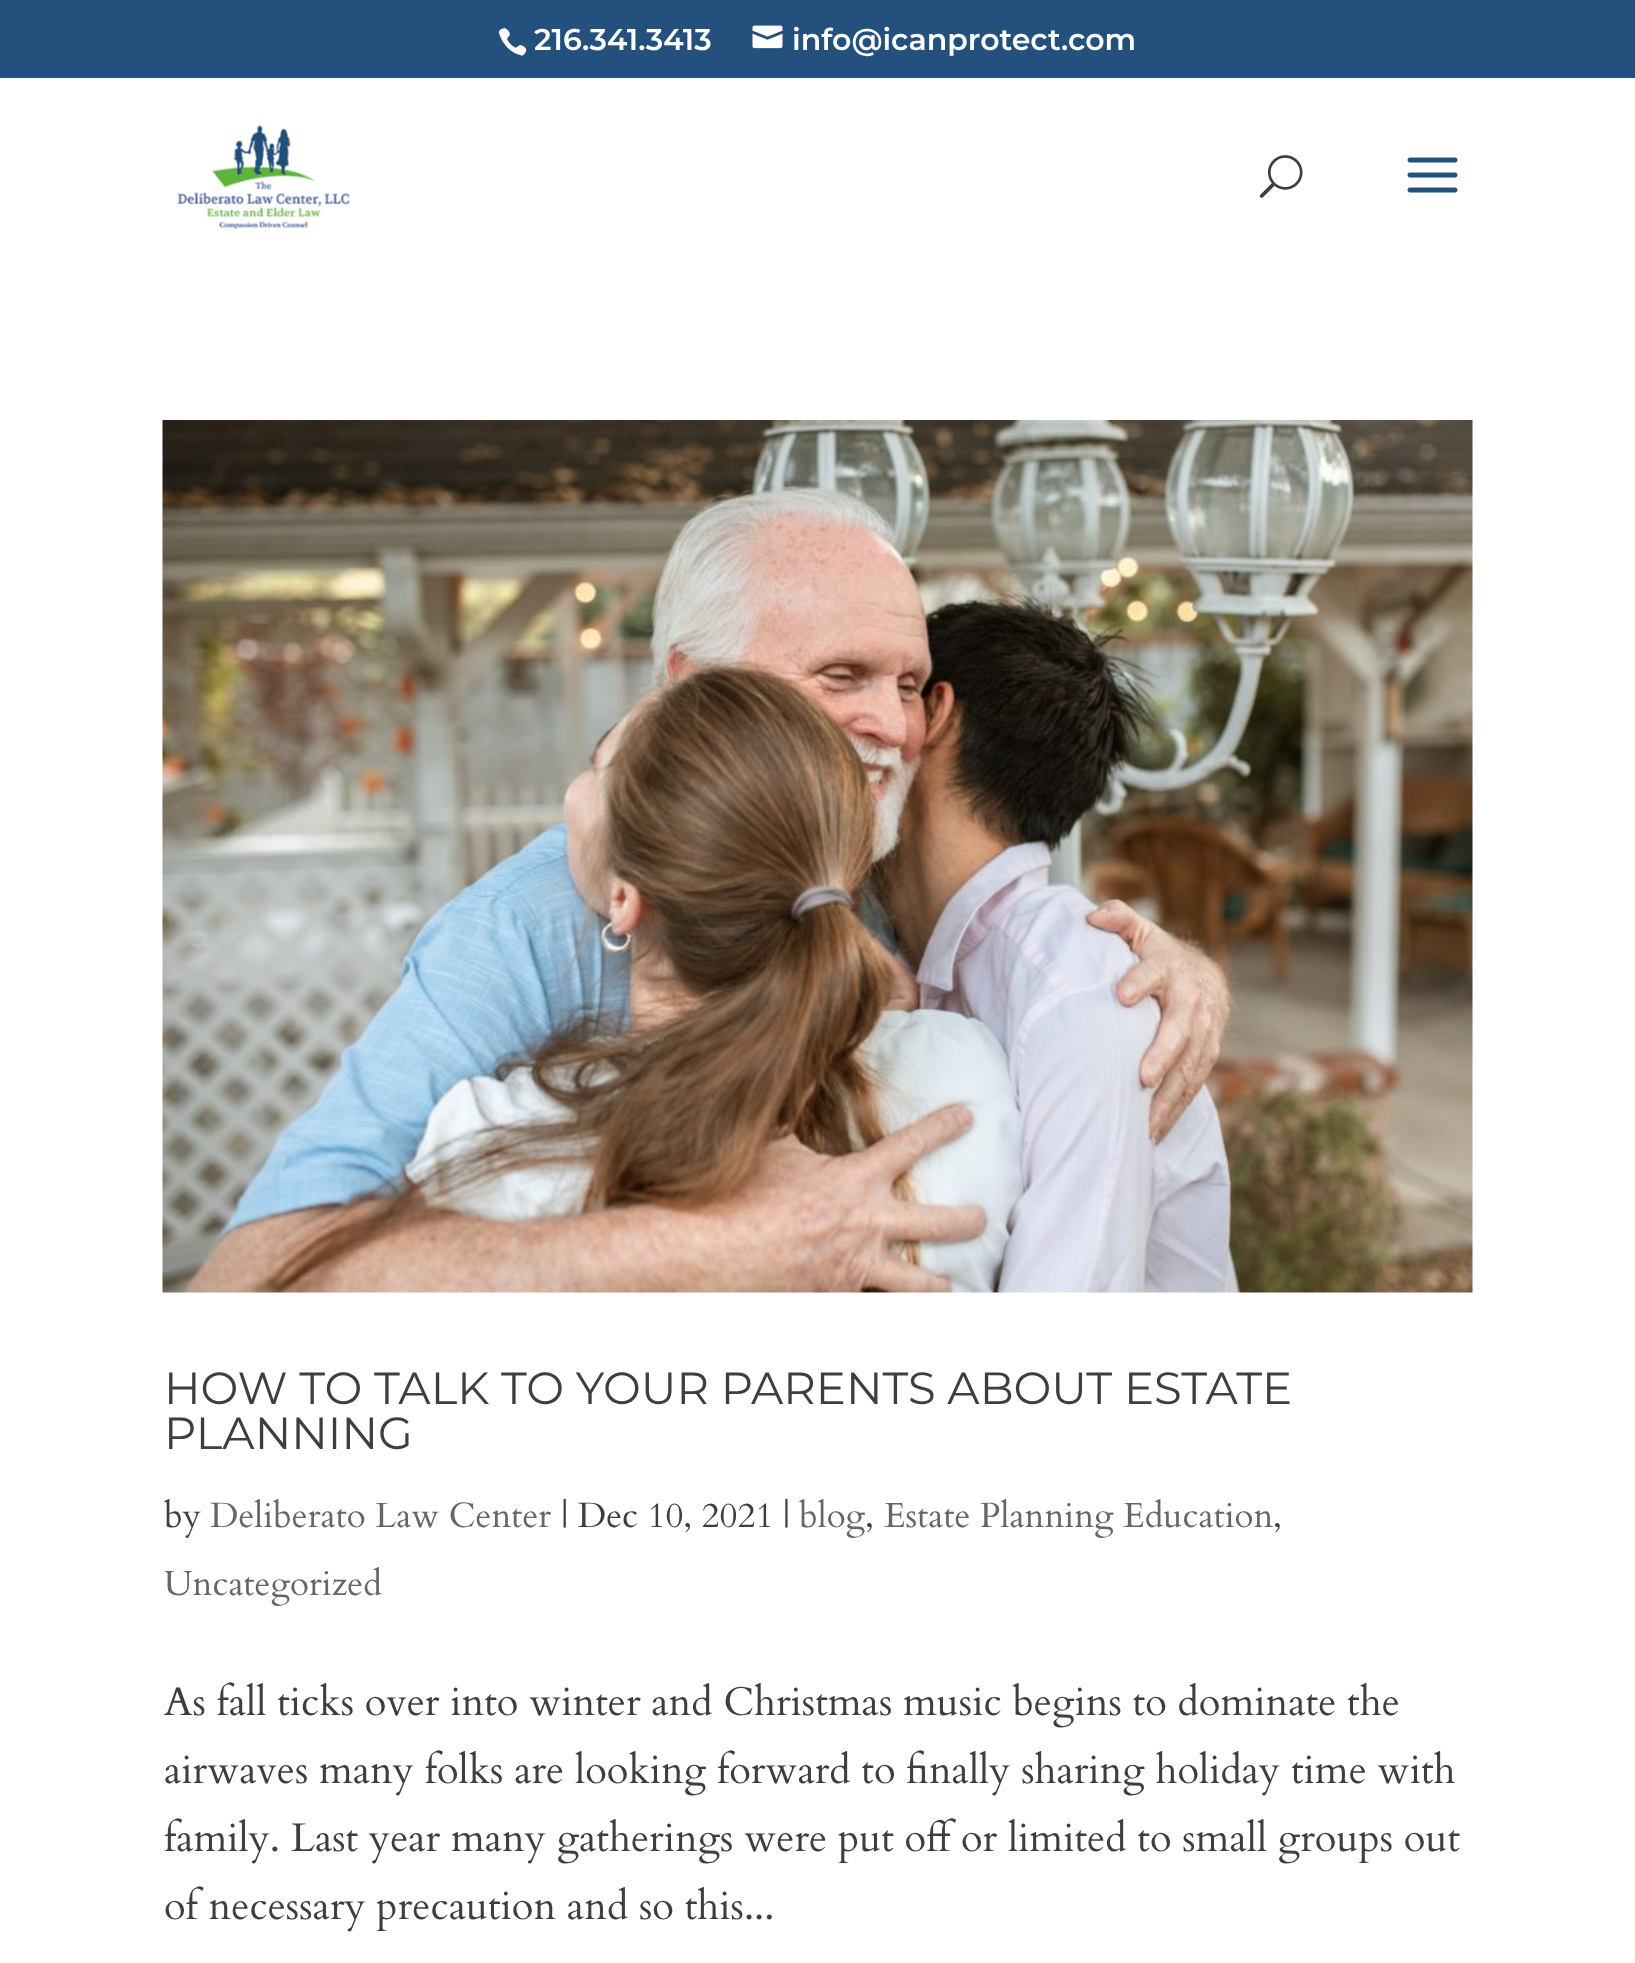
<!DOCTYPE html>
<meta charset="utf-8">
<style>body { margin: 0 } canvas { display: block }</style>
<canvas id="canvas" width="1635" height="1963"></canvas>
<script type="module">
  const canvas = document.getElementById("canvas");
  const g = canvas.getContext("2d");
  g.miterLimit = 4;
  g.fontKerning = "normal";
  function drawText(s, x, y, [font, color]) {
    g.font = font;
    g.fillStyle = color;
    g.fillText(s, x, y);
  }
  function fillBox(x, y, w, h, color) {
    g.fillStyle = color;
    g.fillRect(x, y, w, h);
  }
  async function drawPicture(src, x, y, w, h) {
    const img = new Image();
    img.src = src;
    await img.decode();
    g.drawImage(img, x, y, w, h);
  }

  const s1 = ["100 30px 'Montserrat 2'", "#FFFFFF"];
  const s2 = ["100 45px Montserrat", "#3E3E3E"];
  const s3 = ["35px Cardo", "#3E3E3E"];
  const s4 = ["35px Cardo", "#666666"];
  const s5 = ["40px Cardo", "#3E3E3E"];

  fillBox(0, 0, 1635, 1963, "#FFFFFF");
  fillBox(0, 0, 1635, 78, "#23507D");
  await drawPicture("pic1.png", 498, 28, 29, 28);
  drawText("216.341.3413", 534, 50, s1);
  await drawPicture("pic2.png", 752, 25, 31, 24);
  drawText("info@icanprotect.com", 792, 50, s1);
  await drawPicture("pic3.png", 177, 124, 173, 106);
  await drawPicture("pic4.png", 1259, 155, 44, 43);
  await drawPicture("pic5.png", 1407, 157, 51, 36);
  await drawPicture("pic6.png", 162, 420, 1311, 873);
  drawText("HOW TO TALK TO YOUR PARENTS ABOUT ESTATE", 164, 1404, s2);
  drawText("PLANNING", 164, 1449, s2);
  drawText("by", 164, 1527, s3);
  drawText("Deliberato Law Center", 210, 1527, s4);
  drawText("| Dec 10, 2021 |", 561, 1527, s3);
  drawText("blog", 799, 1527, s4);
  drawText(",", 865, 1527, s3);
  drawText("Estate Planning Education", 884, 1527, s4);
  drawText(",", 1273, 1527, s3);
  drawText("Uncategorized", 164, 1595, s4);
  drawText("As fall ticks over into winter and Christmas music begins to dominate the", 164, 1715, s5);
  drawText("airwaves many folks are looking forward to finally sharing holiday time with", 164, 1783, s5);
  drawText("family. Last year many gatherings were put off or limited to small groups out", 164, 1851, s5);
  drawText("of necessary precaution and so this...", 164, 1919, s5);
</script>
